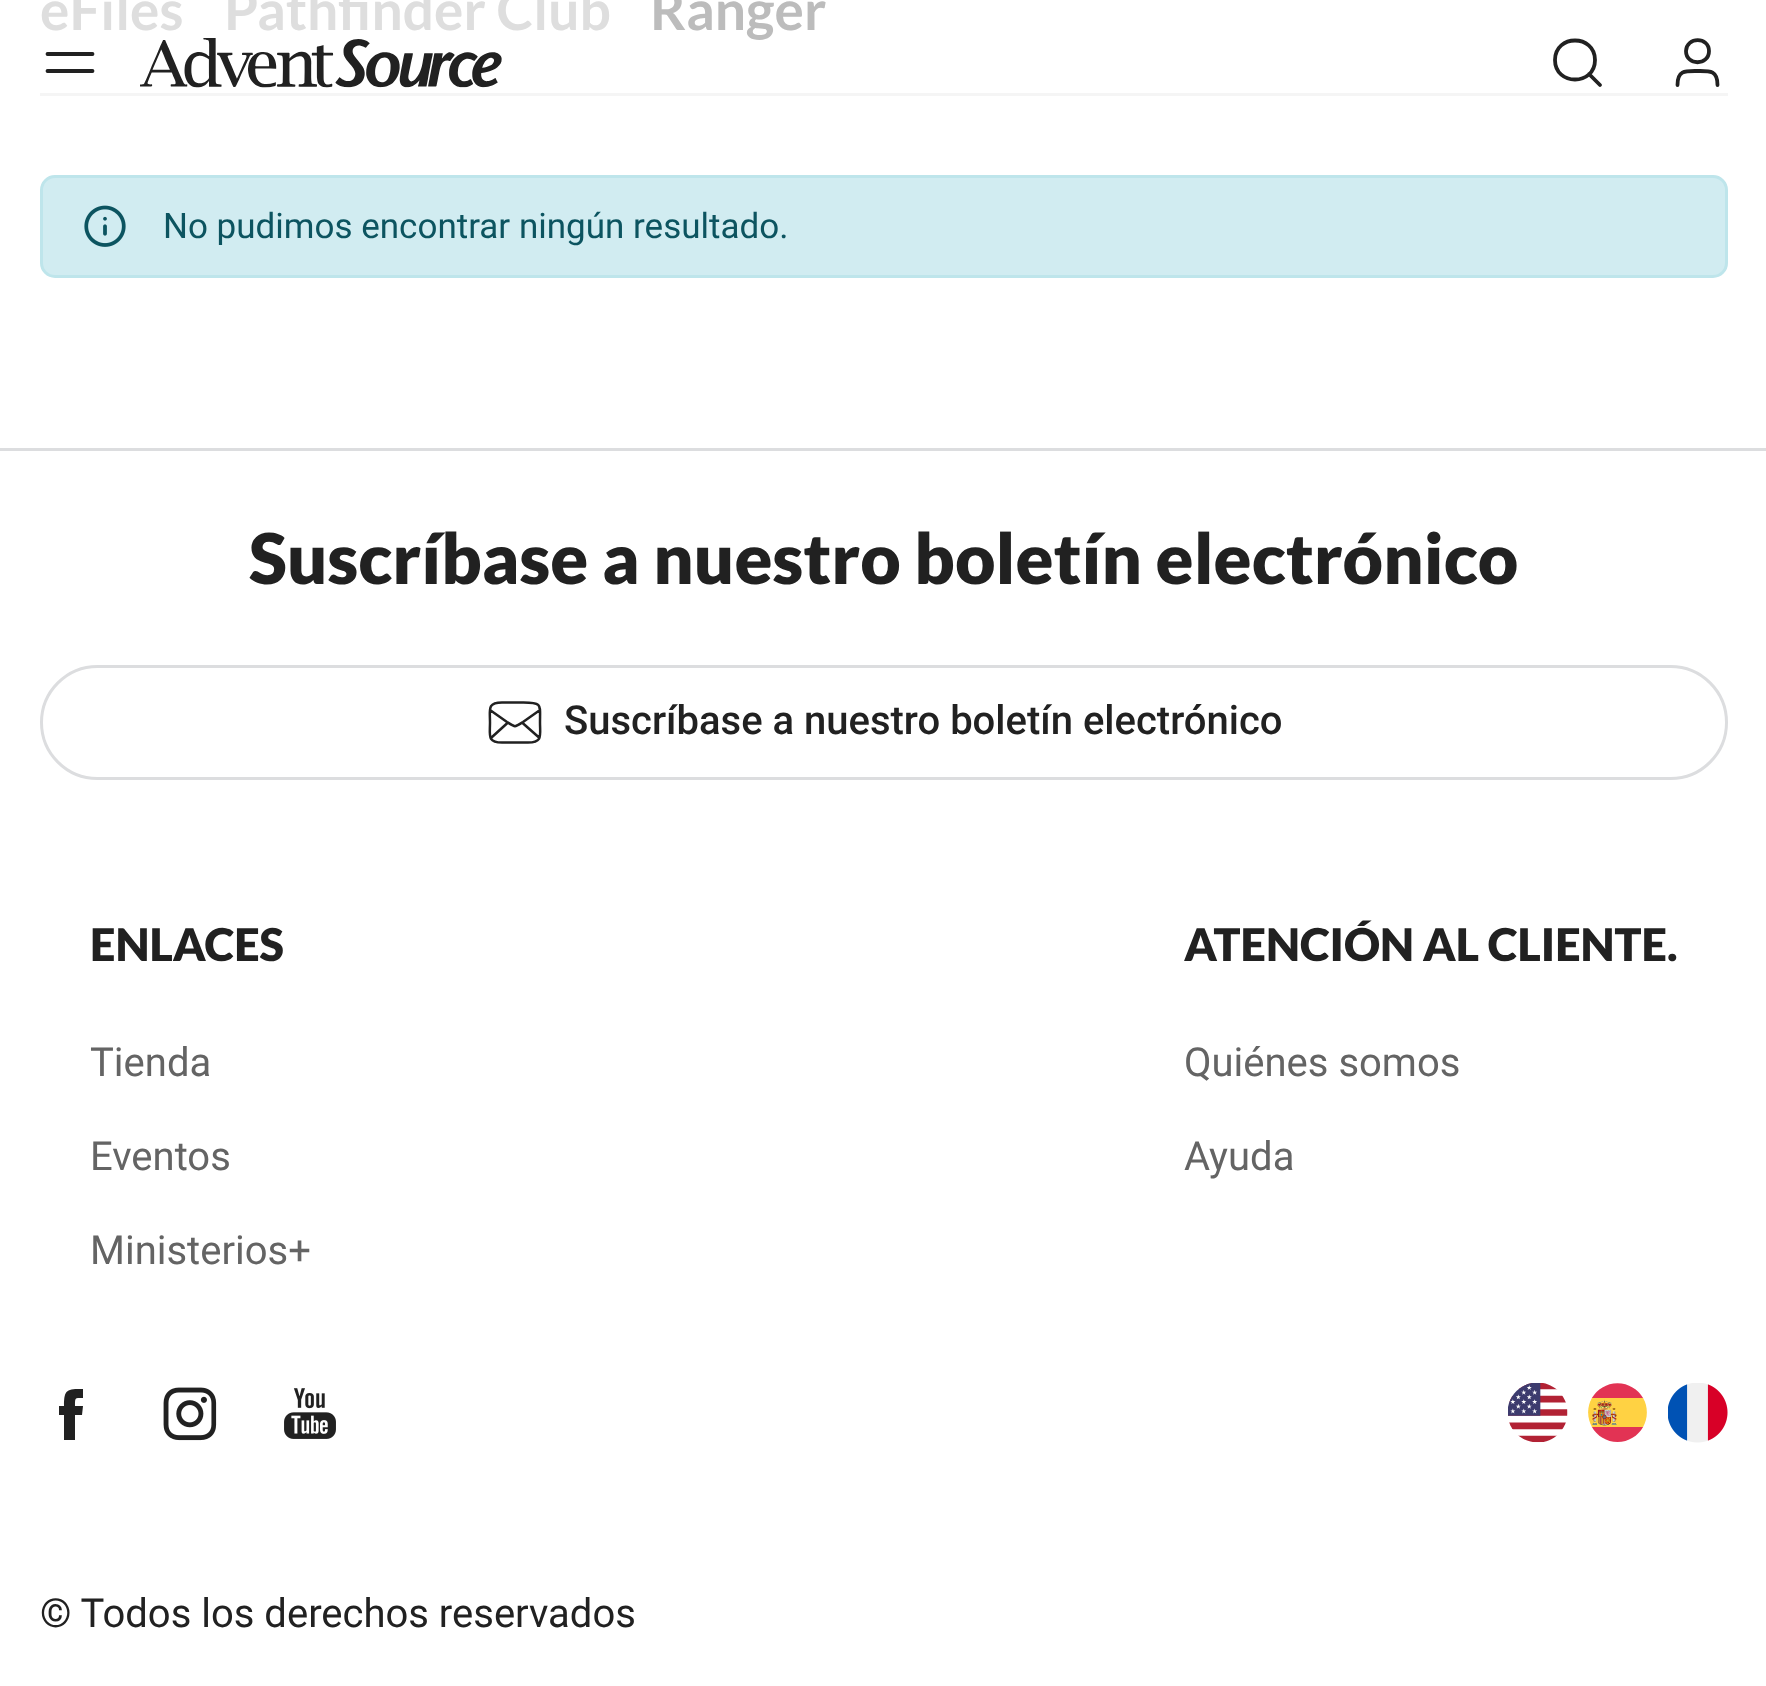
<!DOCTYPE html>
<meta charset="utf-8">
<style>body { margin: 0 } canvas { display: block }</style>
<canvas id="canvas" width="1766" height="1686"></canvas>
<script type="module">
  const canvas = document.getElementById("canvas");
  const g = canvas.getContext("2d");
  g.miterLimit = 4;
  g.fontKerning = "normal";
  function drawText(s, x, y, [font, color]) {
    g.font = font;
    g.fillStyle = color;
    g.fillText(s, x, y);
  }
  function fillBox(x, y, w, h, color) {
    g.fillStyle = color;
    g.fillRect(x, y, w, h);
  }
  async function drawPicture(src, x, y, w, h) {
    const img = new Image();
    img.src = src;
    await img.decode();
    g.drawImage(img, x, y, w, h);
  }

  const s1 = ["bold 55px Lato", "#DEDEDE"];
  const s2 = ["bold 55px Lato", "#BCBCBC"];
  const s3 = ["35px Roboto", "#0C5460"];
  const s4 = ["900 70px Lato", "#212121"];
  const s5 = ["500 40px Roboto", "#212121"];
  const s6 = ["900 45px Lato", "#212121"];
  const s7 = ["40px Roboto", "#646464"];
  const s8 = ["40px Roboto", "#212121"];

  fillBox(0, 0, 1766, 1686, "#FFFFFF");
  drawText("eFiles", 40, 30, s1);
  drawText("Pathfinder Club", 224, 30, s1);
  drawText("Ranger", 650, 30, s2);
  fillBox(40, 93, 1688, 3, "#F5F5F5");
  g.fillStyle = "#D1ECF1";
  g.beginPath();
  g.roundRect(41.5, 176.5, 1685, 100, 13.5);
  g.fill();
  g.strokeStyle = "#BEE5EB";
  g.lineWidth = 3;
  g.stroke();
  await drawPicture("pic1.png", 84, 205, 42, 42);
  drawText("No pudimos encontrar ningún resultado.", 163, 238, s3);
  g.beginPath();
  g.moveTo(47.5, 54);
  g.lineTo(92.5, 54);
  g.moveTo(47.5, 71);
  g.lineTo(92.5, 71);
  g.strokeStyle = "#212121";
  g.lineWidth = 3.8;
  g.lineCap = "round";
  g.lineJoin = "round";
  g.stroke();
  await drawPicture("pic2.png", 140, 38, 362, 50);
  g.beginPath();
  g.moveTo(1600, 85);
  g.lineTo(1589, 74);
  g.moveTo(1595, 60);
  g.bezierCurveTo(1595, 86, 1555, 86, 1555, 60);
  g.bezierCurveTo(1555, 34, 1595, 34, 1595, 60);
  g.closePath();
  g.stroke();
  g.beginPath();
  g.moveTo(1717.5, 85);
  g.bezierCurveTo(1717.5, 70, 1709.5, 71, 1697.5, 71);
  g.bezierCurveTo(1685.5, 71, 1677.5, 70, 1677.5, 85);
  g.moveTo(1709, 51);
  g.bezierCurveTo(1709, 66, 1686, 66, 1686, 51);
  g.bezierCurveTo(1686.5, 36.5, 1709, 36.5, 1709, 51);
  g.closePath();
  g.stroke();
  fillBox(0, 448, 1766, 3, "#DCDDDF");
  drawText("Suscríbase a nuestro boletín electrónico", 249, 584, s4);
  g.beginPath();
  g.roundRect(41.5, 666.5, 1685, 112, 56);
  g.strokeStyle = "#DCDDDF";
  g.lineWidth = 3;
  g.lineJoin = "miter";
  g.stroke();
  g.beginPath();
  g.moveTo(539, 737.5);
  g.lineTo(522, 722.5);
  g.moveTo(508, 722.5);
  g.lineTo(491.5, 737.5);
  g.moveTo(490, 710);
  g.lineTo(507, 722);
  g.bezierCurveTo(515.5, 727.5, 514.5, 727.5, 523, 722);
  g.lineTo(540, 710);
  g.moveTo(502, 742.5);
  g.lineTo(528, 742.5);
  g.bezierCurveTo(543, 742.5, 540, 735.5, 540, 722.5);
  g.bezierCurveTo(540, 704.5, 542.5, 702.5, 523.5, 702.5);
  g.lineTo(502, 702.5);
  g.bezierCurveTo(487, 702.5, 490, 709.5, 490, 722.5);
  g.bezierCurveTo(490, 735.5, 487, 742.5, 502, 742.5);
  g.closePath();
  g.strokeStyle = "#212121";
  g.lineWidth = 2.5;
  g.lineJoin = "round";
  g.stroke();
  drawText("Suscríbase a nuestro boletín electrónico", 564, 734, s5);
  drawText("ENLACES", 90, 961, s6);
  drawText("Tienda", 90, 1076, s7);
  drawText("Eventos", 90, 1170, s7);
  drawText("Ministerios+", 90, 1264, s7);
  drawText("ATENCIÓN AL CLIENTE.", 1184, 961, s6);
  drawText("Quiénes somos", 1184, 1076, s7);
  drawText("Ayuda", 1184, 1170, s7);
  g.fillStyle = "#212121";
  g.beginPath();
  g.moveTo(83, 1406);
  g.lineTo(75, 1406);
  g.bezierCurveTo(75, 1397, 75, 1398, 83, 1398);
  g.lineTo(83, 1389);
  g.bezierCurveTo(67, 1389, 64, 1389, 64, 1406);
  g.lineTo(59, 1406);
  g.lineTo(59, 1415);
  g.lineTo(64, 1415);
  g.lineTo(64, 1440);
  g.lineTo(75, 1440);
  g.lineTo(75, 1415);
  g.lineTo(82, 1415);
  g.closePath();
  g.fill();
  await drawPicture("pic3.png", 163, 1387, 54, 54);
  await drawPicture("pic4.png", 284, 1388, 52, 51);
  await drawPicture("pic5.png", 1508, 1383, 60, 60);
  await drawPicture("pic6.png", 1588, 1383, 59, 59);
  await drawPicture("pic7.png", 1668, 1383, 60, 60);
  drawText("© Todos los derechos reservados", 40, 1627, s8);
</script>
